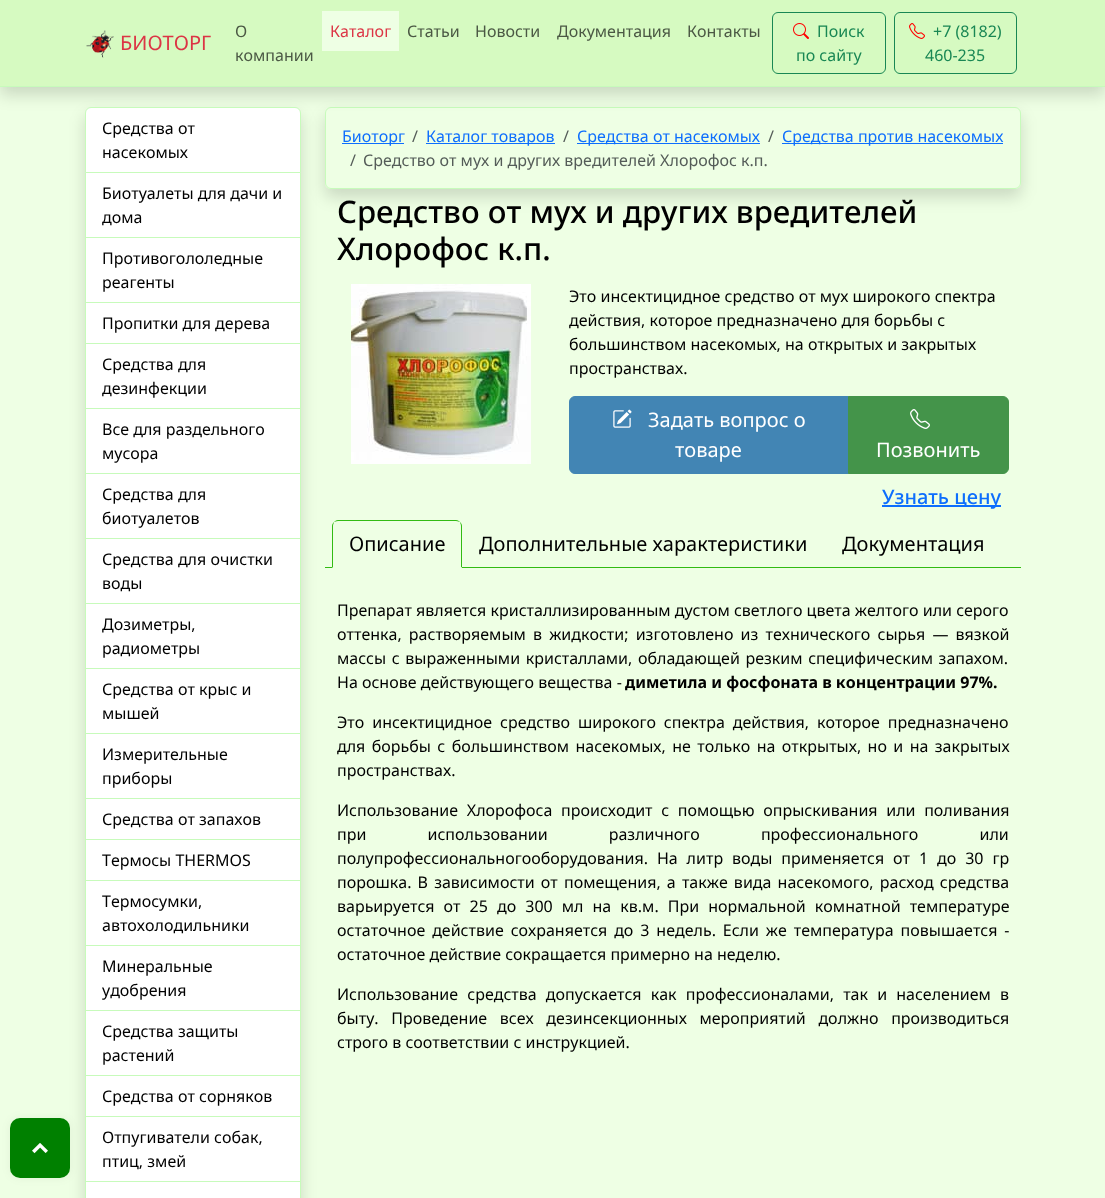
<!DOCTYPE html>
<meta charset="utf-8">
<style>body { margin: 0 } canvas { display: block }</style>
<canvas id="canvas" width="1105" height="1198"></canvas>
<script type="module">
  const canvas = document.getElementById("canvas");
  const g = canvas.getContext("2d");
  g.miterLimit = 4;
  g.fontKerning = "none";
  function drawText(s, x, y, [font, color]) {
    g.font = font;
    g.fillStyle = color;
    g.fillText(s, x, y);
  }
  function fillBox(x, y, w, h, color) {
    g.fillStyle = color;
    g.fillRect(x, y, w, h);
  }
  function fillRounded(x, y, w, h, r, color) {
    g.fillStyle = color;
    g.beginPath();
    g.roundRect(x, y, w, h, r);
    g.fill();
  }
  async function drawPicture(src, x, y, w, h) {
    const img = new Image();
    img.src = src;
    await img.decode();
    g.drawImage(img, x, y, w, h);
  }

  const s1 = ["20px Noto Sans", "#DC3545"];
  const s2 = ["16px Noto Sans", "#4B5844"];
  const s3 = ["16px Noto Sans", "#DC3545"];
  const s4 = ["16px Noto Sans", "#198754"];
  const s5 = ["16px Noto Sans", "#000000"];
  const s6 = ["16px Noto Sans", "#0D6EFD"];
  const s7 = ["16px Noto Sans", "#545C58"];
  const s8 = ["500 31.1px Noto Sans", "#000000"];
  const s9 = ["20px Noto Sans", "#FFFFFF"];
  const s10 = ["500 20px Noto Sans", "#0D6EFD"];
  const s11 = ["20px Noto Sans", "#000000"];
  const s12 = ["bold 16px Noto Sans", "#000000"];

  fillBox(0, 0, 1105, 1198, "#EEFFE4");
  g.fillStyle = "rgba(0, 0, 0, 0.15)";
  g.filter = "blur(8px)";
  g.beginPath();
  g.roundRect(85, 115, 216, 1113, 6);
  g.fill();
  g.filter = "none";
  g.save();
  g.beginPath();
  g.moveTo(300, 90);
  g.lineTo(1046, 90);
  g.lineTo(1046, 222);
  g.lineTo(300, 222);
  g.closePath();
  g.moveTo(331, 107);
  g.lineTo(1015, 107);
  g.bezierCurveTo(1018.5, 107, 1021, 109.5, 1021, 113);
  g.lineTo(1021, 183);
  g.bezierCurveTo(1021, 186.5, 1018.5, 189, 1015, 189);
  g.lineTo(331, 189);
  g.bezierCurveTo(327.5, 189, 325, 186.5, 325, 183);
  g.lineTo(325, 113);
  g.bezierCurveTo(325, 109.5, 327.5, 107, 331, 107);
  g.closePath();
  g.clip("evenodd");
  g.filter = "blur(8px)";
  g.beginPath();
  g.roundRect(325, 115, 696, 82, 6);
  g.fill();
  g.filter = "none";
  g.restore();
  g.beginPath();
  g.roundRect(325.5, 107.5, 695, 81, 5.5);
  g.strokeStyle = "#C7FBBB";
  g.stroke();
  g.filter = "blur(8px)";
  g.beginPath();
  g.rect(0, 8, 1105, 87);
  g.fill();
  g.filter = "none";
  fillBox(0, 0, 1105, 86, "#D6FAC1");
  fillBox(0, 86, 1105, 1, "#C7FBBB");
  await drawPicture("pic1.png", 86, 30, 28, 28);
  drawText("БИОТОРГ", 120, 50, s1);
  drawText("О", 235, 37, s2);
  drawText("компании", 235, 61, s2);
  fillBox(322, 11, 77, 40, "#EEFFE4");
  drawText("Каталог", 330, 37, s3);
  drawText("Статьи", 407, 37, s2);
  drawText("Новости", 475, 37, s2);
  drawText("Документация", 557, 37, s2);
  drawText("Контакты", 687, 37, s2);
  g.beginPath();
  g.roundRect(772.5, 12.5, 113, 61, 5.5);
  g.strokeStyle = "#198754";
  g.stroke();
  await drawPicture("pic2.png", 793, 23, 16, 16);
  drawText("Поиск", 817, 37, s4);
  drawText("по сайту", 796, 61, s4);
  g.beginPath();
  g.roundRect(894.5, 12.5, 122, 61, 5.5);
  g.stroke();
  await drawPicture("pic3.png", 909, 23, 16, 16);
  drawText("+7 (8182)", 933, 37, s4);
  drawText("460-235", 925, 61, s4);
  fillBox(300, 173, 1, 1025, "#C7FBBB");
  fillBox(85, 1116, 216, 1, "#C7FBBB");
  fillBox(85, 1076, 1, 41, "#C7FBBB");
  fillBox(85, 1181, 216, 1, "#C7FBBB");
  fillBox(85, 1117, 1, 81, "#C7FBBB");
  g.fillStyle = "rgba(0, 0, 0, 0.05)";
  g.filter = "blur(5px)";
  g.beginPath();
  g.roundRect(10, 1118, 60, 60, 10);
  g.fill();
  g.filter = "none";
  fillRounded(10, 1118, 60, 60, 10, "#008000");
  await drawPicture("pic4.png", 32, 1143, 16, 11);
  g.fillStyle = "#FFFFFF";
  g.beginPath();
  g.roundRect(85.5, 107.5, 215, 65, [5.5, 5.5, 0, 0]);
  g.fill();
  g.strokeStyle = "#C7FBBB";
  g.stroke();
  drawText("Средства от", 102, 134, s5);
  drawText("насекомых", 102, 158, s5);
  fillBox(86, 173, 214, 64, "#FFFFFF");
  fillBox(85, 237, 216, 1, "#C7FBBB");
  fillBox(85, 173, 1, 65, "#C7FBBB");
  drawText("Биотуалеты для дачи и", 102, 199, s5);
  drawText("дома", 102, 223, s5);
  fillBox(86, 238, 214, 64, "#FFFFFF");
  fillBox(85, 302, 216, 1, "#C7FBBB");
  fillBox(85, 238, 1, 65, "#C7FBBB");
  drawText("Противогололедные", 102, 264, s5);
  drawText("реагенты", 102, 288, s5);
  fillBox(86, 303, 214, 40, "#FFFFFF");
  fillBox(85, 343, 216, 1, "#C7FBBB");
  fillBox(85, 303, 1, 41, "#C7FBBB");
  drawText("Пропитки для дерева", 102, 329, s5);
  fillBox(86, 344, 214, 64, "#FFFFFF");
  fillBox(85, 408, 216, 1, "#C7FBBB");
  fillBox(85, 344, 1, 65, "#C7FBBB");
  drawText("Средства для", 102, 370, s5);
  drawText("дезинфекции", 102, 394, s5);
  fillBox(86, 409, 214, 64, "#FFFFFF");
  fillBox(85, 473, 216, 1, "#C7FBBB");
  fillBox(85, 409, 1, 65, "#C7FBBB");
  drawText("Все для раздельного", 102, 435, s5);
  drawText("мусора", 102, 459, s5);
  fillBox(86, 474, 214, 64, "#FFFFFF");
  fillBox(85, 538, 216, 1, "#C7FBBB");
  fillBox(85, 474, 1, 65, "#C7FBBB");
  drawText("Средства для", 102, 500, s5);
  drawText("биотуалетов", 102, 524, s5);
  fillBox(86, 539, 214, 64, "#FFFFFF");
  fillBox(85, 603, 216, 1, "#C7FBBB");
  fillBox(85, 539, 1, 65, "#C7FBBB");
  drawText("Средства для очистки", 102, 565, s5);
  drawText("воды", 102, 589, s5);
  fillBox(86, 604, 214, 64, "#FFFFFF");
  fillBox(85, 668, 216, 1, "#C7FBBB");
  fillBox(85, 604, 1, 65, "#C7FBBB");
  drawText("Дозиметры,", 102, 630, s5);
  drawText("радиометры", 102, 654, s5);
  fillBox(86, 669, 214, 64, "#FFFFFF");
  fillBox(85, 733, 216, 1, "#C7FBBB");
  fillBox(85, 669, 1, 65, "#C7FBBB");
  drawText("Средства от крыс и", 102, 695, s5);
  drawText("мышей", 102, 719, s5);
  fillBox(86, 734, 214, 64, "#FFFFFF");
  fillBox(85, 798, 216, 1, "#C7FBBB");
  fillBox(85, 734, 1, 65, "#C7FBBB");
  drawText("Измерительные", 102, 760, s5);
  drawText("приборы", 102, 784, s5);
  fillBox(86, 799, 214, 40, "#FFFFFF");
  fillBox(85, 839, 216, 1, "#C7FBBB");
  fillBox(85, 799, 1, 41, "#C7FBBB");
  drawText("Средства от запахов", 102, 825, s5);
  fillBox(86, 840, 214, 40, "#FFFFFF");
  fillBox(85, 880, 216, 1, "#C7FBBB");
  fillBox(85, 840, 1, 41, "#C7FBBB");
  drawText("Термосы THERMOS", 102, 866, s5);
  fillBox(86, 881, 214, 64, "#FFFFFF");
  fillBox(85, 945, 216, 1, "#C7FBBB");
  fillBox(85, 881, 1, 65, "#C7FBBB");
  drawText("Термосумки,", 102, 907, s5);
  drawText("автохолодильники", 102, 931, s5);
  fillBox(86, 946, 214, 64, "#FFFFFF");
  fillBox(85, 1010, 216, 1, "#C7FBBB");
  fillBox(85, 946, 1, 65, "#C7FBBB");
  drawText("Минеральные", 102, 972, s5);
  drawText("удобрения", 102, 996, s5);
  fillBox(86, 1011, 214, 64, "#FFFFFF");
  fillBox(85, 1075, 216, 1, "#C7FBBB");
  fillBox(85, 1011, 1, 65, "#C7FBBB");
  drawText("Средства защиты", 102, 1037, s5);
  drawText("растений", 102, 1061, s5);
  fillBox(86, 1076, 214, 40, "#FFFFFF");
  drawText("Средства от сорняков", 102, 1102, s5);
  fillBox(86, 1117, 214, 64, "#FFFFFF");
  drawText("Отпугиватели собак,", 102, 1143, s5);
  drawText("птиц, змей", 102, 1167, s5);
  fillBox(86, 1182, 214, 16, "#FFFFFF");
  fillBox(342, 143, 62, 1, "#0D6EFD");
  drawText("Биоторг", 342, 142, s6);
  drawText("/", 412, 142, s7);
  fillBox(426, 143, 129, 1, "#0D6EFD");
  drawText("Каталог товаров", 426, 142, s6);
  drawText("/", 563, 142, s7);
  fillBox(577, 143, 183, 1, "#0D6EFD");
  drawText("Средства от насекомых", 577, 142, s6);
  drawText("/", 768, 142, s7);
  fillBox(782, 143, 221, 1, "#0D6EFD");
  drawText("Средства против насекомых", 782, 142, s6);
  drawText("/", 350, 166, s7);
  drawText("Средство от мух и других вредителей Хлорофос к.п.", 363, 166, s7);
  drawText("Средство от мух и других вредителей", 337, 223, s8);
  drawText("Хлорофос к.п.", 337, 260, s8);
  await drawPicture("pic5.png", 351, 284, 180, 180);
  drawText("Это инсектицидное средство от мух широкого спектра", 569, 302, s5);
  drawText("действия, которое предназначено для борьбы с", 569, 326, s5);
  drawText("большинством насекомых, на открытых и закрытых", 569, 350, s5);
  drawText("пространствах.", 569, 374, s5);
  g.fillStyle = "#4285B4";
  g.beginPath();
  g.roundRect(569.5, 396.5, 279, 77, [5.5, 0, 0, 5.5]);
  g.fill();
  g.strokeStyle = "#4285B4";
  g.stroke();
  await drawPicture("pic6.png", 613, 409, 19, 19);
  drawText("Задать вопрос о", 648, 427, s9);
  drawText("товаре", 675, 457, s9);
  g.fillStyle = "#44944A";
  g.beginPath();
  g.roundRect(848.5, 396.5, 160, 77, [0, 5.5, 5.5, 0]);
  g.fill();
  g.strokeStyle = "#44944A";
  g.stroke();
  await drawPicture("pic7.png", 910, 409, 20, 20);
  drawText("Позвонить", 876, 457, s9);
  fillBox(882, 505, 119, 2, "#0D6EFD");
  drawText("Узнать цену", 882, 504, s10);
  fillBox(325, 567, 696, 1, "#32BB13");
  g.fillStyle = "#EEFFE4";
  g.beginPath();
  g.roundRect(332, 520, 130, 48, [6, 6, 0, 0]);
  g.fill();
  g.fillStyle = "#32BB13";
  g.beginPath();
  g.moveTo(338, 520);
  g.bezierCurveTo(336, 520, 335, 521, 334, 522);
  g.bezierCurveTo(335, 522, 336, 521, 338, 521);
  g.lineTo(456, 521);
  g.bezierCurveTo(458, 521, 459, 522, 460, 522);
  g.bezierCurveTo(459, 521, 458, 520, 456, 520);
  g.closePath();
  g.fill();
  g.beginPath();
  g.moveTo(462, 568);
  g.lineTo(462, 526);
  g.bezierCurveTo(462, 524, 461, 523, 460, 522);
  g.bezierCurveTo(460, 523, 461, 524, 461, 526);
  g.lineTo(461, 567);
  g.closePath();
  g.fill();
  g.fillStyle = "#EEFFE4";
  g.beginPath();
  g.moveTo(462, 568);
  g.lineTo(461, 567);
  g.lineTo(333, 567);
  g.lineTo(332, 568);
  g.closePath();
  g.fill();
  g.fillStyle = "#32BB13";
  g.beginPath();
  g.moveTo(332, 568);
  g.lineTo(333, 567);
  g.lineTo(333, 526);
  g.bezierCurveTo(333, 524, 334, 523, 334, 522);
  g.bezierCurveTo(333, 523, 332, 524, 332, 526);
  g.closePath();
  g.fill();
  drawText("Описание", 349, 551, s11);
  drawText("Дополнительные характеристики", 479, 551, s11);
  drawText("Документация", 842, 551, s11);
  drawText("Препарат является кристаллизированным дустом светлого цвета желтого или серого", 337, 616, s5);
  g.wordSpacing = "3px";
  drawText("оттенка, растворяемым в жидкости; изготовлено из технического сырья — вязкой", 337, 640, s5);
  g.wordSpacing = "1.5px";
  drawText("массы с выраженными кристаллами, обладающей резким специфическим запахом.", 337, 664, s5);
  g.wordSpacing = "0px";
  drawText("На основе действующего вещества -", 337, 688, s5);
  drawText("диметила и фосфоната в концентрации 97%.", 625, 688, s12);
  g.wordSpacing = "3.75px";
  drawText("Это инсектицидное средство широкого спектра действия, которое предназначено", 337, 728, s5);
  g.wordSpacing = "2.25px";
  drawText("для борьбы с большинством насекомых, не только на открытых, но и на закрытых", 337, 752, s5);
  g.wordSpacing = "0px";
  drawText("пространствах.", 337, 776, s5);
  g.wordSpacing = "4.5px";
  drawText("Использование Хлорофоса происходит с помощью опрыскивания или поливания", 337, 816, s5);
  g.wordSpacing = "57px";
  drawText("при использовании различного профессионального или", 337, 840, s5);
  g.wordSpacing = "4.75px";
  drawText("полупрофессиональногооборудования. На литр воды применяется от 1 до 30 гр", 337, 864, s5);
  g.wordSpacing = "2px";
  drawText("порошка. В зависимости от помещения, а также вида насекомого, расход средства", 337, 888, s5);
  g.wordSpacing = "4.9px";
  drawText("варьируется от 25 до 300 мл на кв.м. При нормальной комнатной температуре", 337, 912, s5);
  g.wordSpacing = "2.75px";
  drawText("остаточное действие сохраняется до 3 недель. Если же температура повышается -", 337, 936, s5);
  g.wordSpacing = "0px";
  drawText("остаточное действие сокращается примерно на неделю.", 337, 960, s5);
  g.wordSpacing = "5px";
  drawText("Использование средства допускается как профессионалами, так и населением в", 337, 1000, s5);
  g.wordSpacing = "8.5px";
  drawText("быту. Проведение всех дезинсекционных мероприятий должно производиться", 337, 1024, s5);
  g.wordSpacing = "0px";
  drawText("строго в соответствии с инструкцией.", 337, 1048, s5);
</script>
